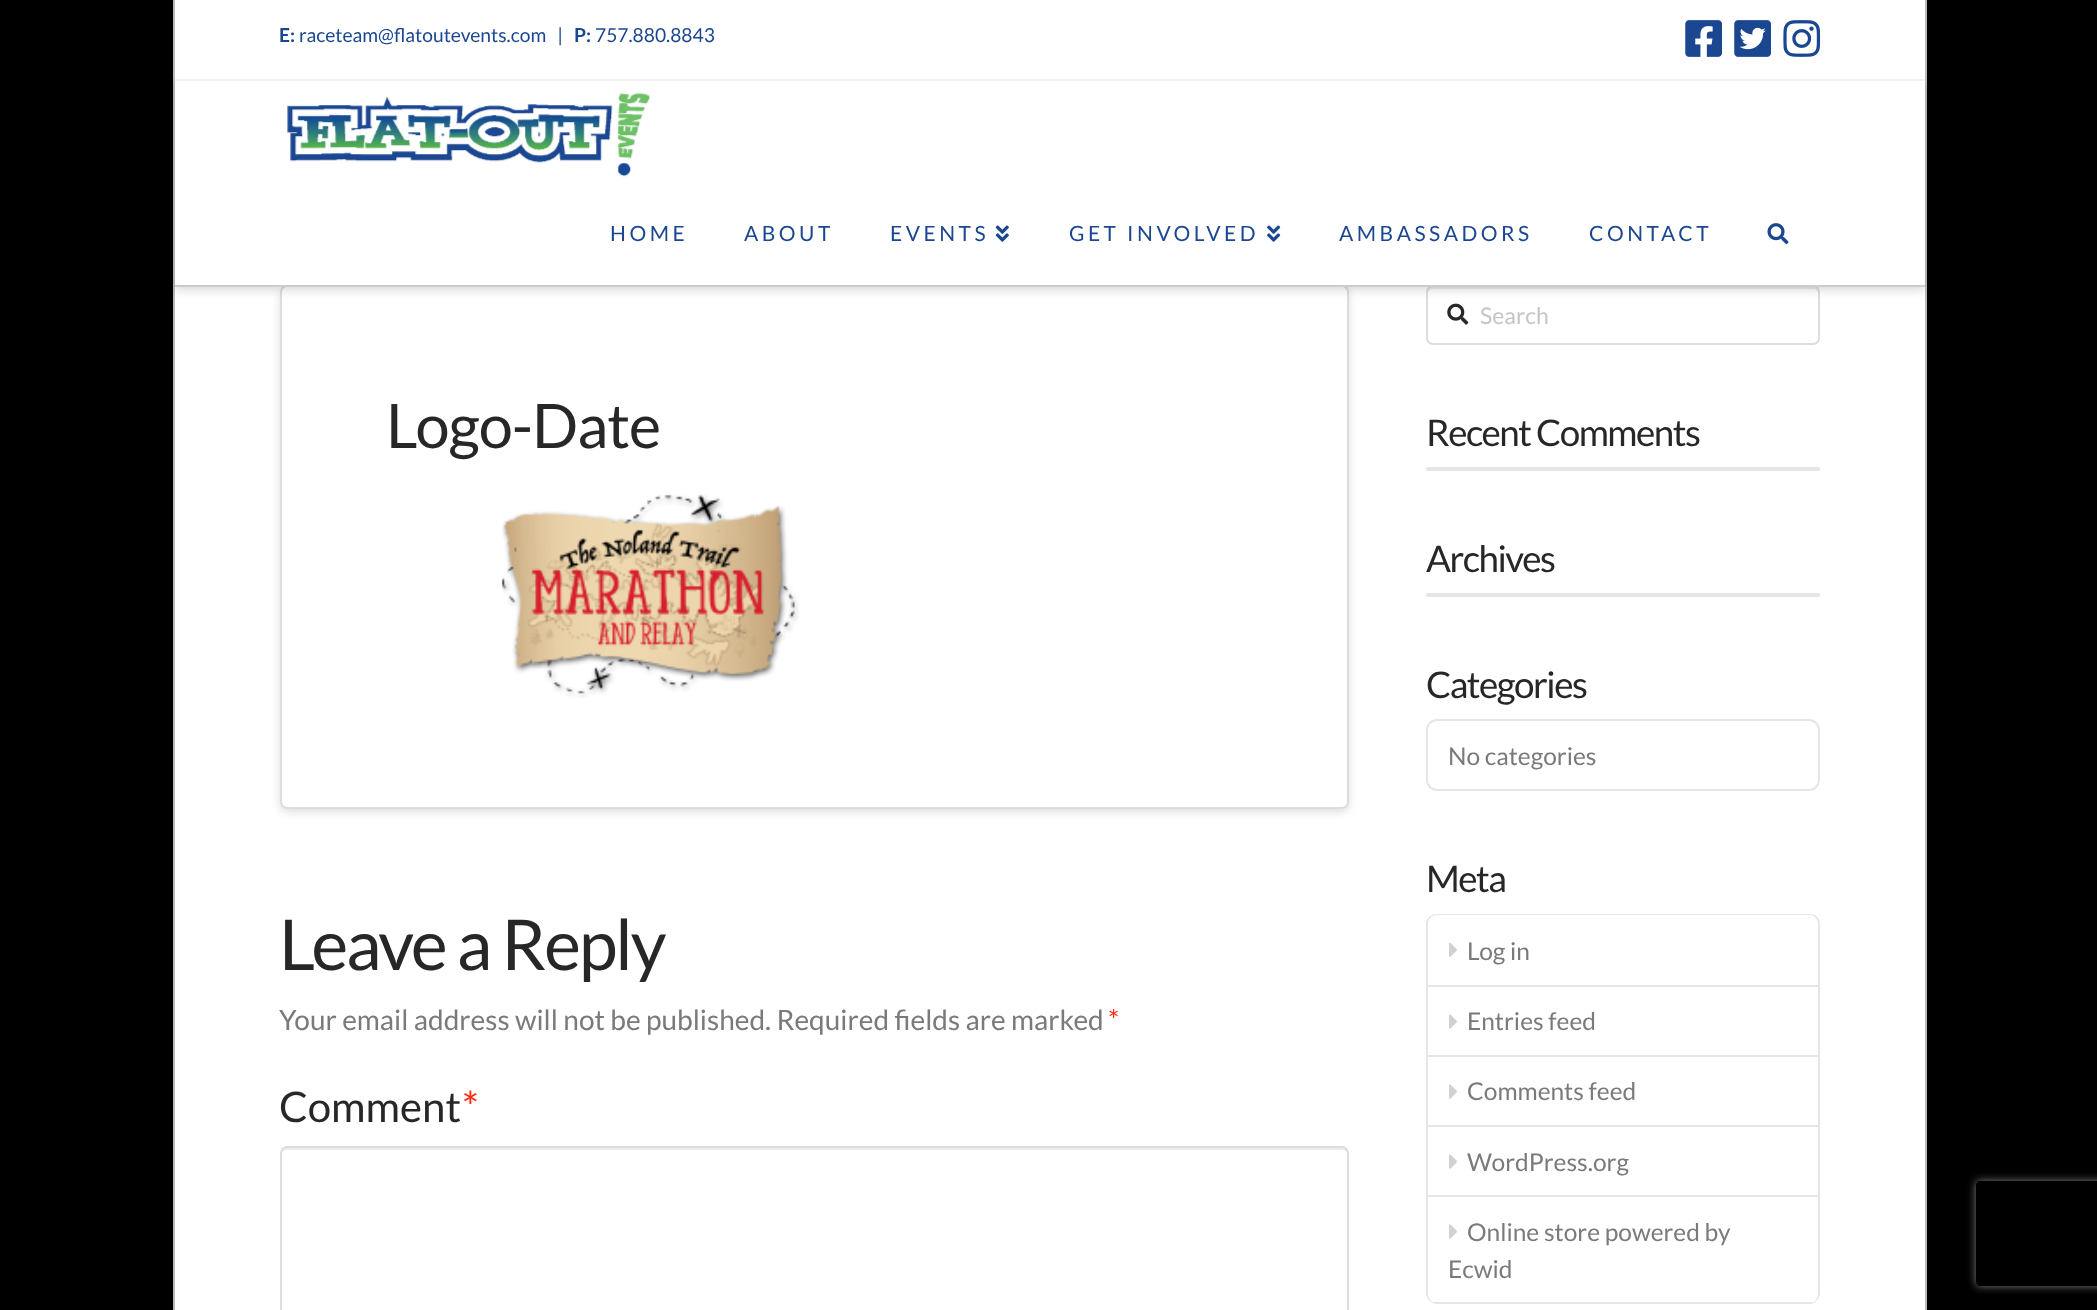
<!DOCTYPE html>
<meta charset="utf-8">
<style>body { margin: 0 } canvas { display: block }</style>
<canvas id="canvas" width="2097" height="1310"></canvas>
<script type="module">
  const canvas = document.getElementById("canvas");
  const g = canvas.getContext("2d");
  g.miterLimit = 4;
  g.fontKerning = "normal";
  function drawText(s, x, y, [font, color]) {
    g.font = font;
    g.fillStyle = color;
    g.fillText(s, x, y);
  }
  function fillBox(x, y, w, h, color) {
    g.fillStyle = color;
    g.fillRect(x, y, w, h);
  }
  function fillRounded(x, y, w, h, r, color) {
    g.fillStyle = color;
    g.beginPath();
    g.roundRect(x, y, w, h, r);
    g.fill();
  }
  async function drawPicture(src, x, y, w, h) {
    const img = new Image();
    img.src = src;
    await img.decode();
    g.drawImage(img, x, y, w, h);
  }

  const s1 = ["bold 19.25px Lato", "#1B4791"];
  const s2 = ["19.25px Lato", "#1B4791"];
  const s3 = ["21px Lato", "#1B4791"];
  const s4 = ["61.25px Lato", "#272727"];
  const s5 = ["70px Lato", "#272727"];
  const s6 = ["28px Lato", "#7A7A7A"];
  const s7 = ["28px Lato", "#FF2A13"];
  const s8 = ["42px Lato", "#272727"];
  const s9 = ["42px Lato", "#FF2A13"];
  const s10 = ["23px Lato", "#C5C5C5"];
  const s11 = ["36.75px Lato", "#272727"];
  const s12 = ["24.5px Lato", "#7A7A7A"];

  fillBox(0, 0, 2097, 1310, "#000000");
  fillBox(175, 287, 1750, 1023, "#FFFFFF");
  fillBox(1925, 0, 2, 1310, "#B9B9B9");
  fillBox(173, 0, 2, 1310, "#B9B9B9");
  g.fillStyle = "rgba(0, 0, 0, 0.13)";
  g.filter = "blur(4.5px)";
  g.beginPath();
  g.roundRect(280, 289, 1069, 523, 7);
  g.fill();
  g.filter = "none";
  g.fillStyle = "#FFFFFF";
  g.beginPath();
  g.roundRect(281, 286, 1067, 522, 6);
  g.fill();
  g.strokeStyle = "#DDDDDD";
  g.lineWidth = 2;
  g.stroke();
  g.fillStyle = "#ECECEC";
  g.beginPath();
  g.moveTo(1433, 289);
  g.lineTo(1813, 289);
  g.bezierCurveTo(1816, 289, 1818, 291, 1818, 294);
  g.lineTo(1818, 292);
  g.bezierCurveTo(1818, 289, 1816, 287, 1813, 287);
  g.lineTo(1433, 287);
  g.bezierCurveTo(1430, 287, 1428, 289, 1428, 292);
  g.lineTo(1428, 294);
  g.bezierCurveTo(1428, 291, 1430, 289, 1433, 289);
  g.closePath();
  g.fill();
  g.beginPath();
  g.roundRect(1427, 286, 392, 58, 6);
  g.stroke();
  await drawPicture("pic9.png", 1447, 303, 22, 22);
  g.fillStyle = "rgba(0, 0, 0, 0.13)";
  g.filter = "blur(4.5px)";
  g.beginPath();
  g.rect(175, 84, 1750, 207);
  g.fill();
  g.filter = "none";
  fillBox(175, 0, 1750, 79, "#FFFFFF");
  fillBox(175, 79, 1750, 2, "#F2F2F2");
  drawText("E:", 279, 42, s1);
  drawText("raceteam@flatoutevents.com   |", 299, 42, s2);
  drawText("P:", 574, 42, s1);
  drawText("757.880.8843", 595, 42, s2);
  await drawPicture("pic1.png", 1685, 20, 37, 37);
  await drawPicture("pic2.png", 1734, 20, 37, 37);
  await drawPicture("pic3.png", 1783, 20, 38, 37);
  fillBox(175, 81, 1750, 204, "#FFFFFF");
  fillBox(175, 285, 1750, 2, "#CCCCCC");
  await drawPicture("pic4.png", 287, 92, 364, 85);
  g.letterSpacing = "3.5px";
  drawText("HOME", 610, 241, s3);
  drawText("ABOUT", 744, 241, s3);
  drawText("EVENTS", 890, 241, s3);
  await drawPicture("pic5.png", 995, 225, 14, 17);
  drawText("GET INVOLVED", 1069, 241, s3);
  await drawPicture("pic6.png", 1267, 225, 14, 17);
  drawText("AMBASSADORS", 1339, 241, s3);
  drawText("CONTACT", 1589, 241, s3);
  await drawPicture("pic7.png", 1767, 223, 22, 22);
  g.letterSpacing = "-1px";
  drawText("Logo-Date", 386, 448, s4);
  await drawPicture("pic8.png", 501, 494, 298, 204);
  g.letterSpacing = "-2.2px";
  drawText("Leave a Reply", 279, 970, s5);
  g.letterSpacing = "0px";
  drawText("Your email address will not be published. Required fields are marked", 279, 1030, s6);
  drawText("*", 1108, 1030, s7);
  drawText("Comment", 279, 1122, s8);
  drawText("*", 462, 1122, s9);
  g.fillStyle = "#ECECEC";
  g.beginPath();
  g.moveTo(287, 1150);
  g.lineTo(1342, 1150);
  g.bezierCurveTo(1345, 1150, 1348, 1152, 1348, 1155);
  g.lineTo(1348, 1153);
  g.bezierCurveTo(1348, 1150, 1346, 1148, 1343, 1148);
  g.lineTo(287, 1148);
  g.bezierCurveTo(284, 1148, 282, 1150, 282, 1153);
  g.lineTo(282, 1155);
  g.bezierCurveTo(282, 1152, 284, 1150, 287, 1150);
  g.closePath();
  g.fill();
  g.beginPath();
  g.roundRect(281, 1147, 1067, 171, 6);
  g.stroke();
  drawText("Search", 1480, 324, s10);
  g.letterSpacing = "-1.5px";
  drawText("Recent Comments", 1426, 446, s11);
  fillRounded(1426, 467, 394, 4, 2, "#E6E6E6");
  drawText("Archives", 1426, 572, s11);
  fillRounded(1426, 593, 394, 4, 2, "#E6E6E6");
  drawText("Categories", 1426, 698, s11);
  g.beginPath();
  g.roundRect(1427, 720, 392, 70, 10);
  g.strokeStyle = "#E6E6E6";
  g.stroke();
  g.letterSpacing = "0px";
  drawText("No categories", 1448, 765, s12);
  g.letterSpacing = "-1.5px";
  drawText("Meta", 1426, 892, s11);
  g.fillStyle = "#E6E6E6";
  g.beginPath();
  g.moveTo(1437, 914);
  g.lineTo(1810, 914);
  g.bezierCurveTo(1815, 914, 1820, 918, 1820, 924);
  g.lineTo(1820, 1293);
  g.bezierCurveTo(1820, 1299, 1815, 1304, 1810, 1304);
  g.lineTo(1437, 1304);
  g.bezierCurveTo(1431, 1304, 1426, 1299, 1426, 1293);
  g.lineTo(1426, 924);
  g.bezierCurveTo(1426, 918, 1431, 914, 1437, 914);
  g.closePath();
  g.moveTo(1437, 915);
  g.lineTo(1810, 915);
  g.bezierCurveTo(1814, 915, 1818, 919, 1818, 924);
  g.lineTo(1818, 1293);
  g.bezierCurveTo(1818, 1299, 1814, 1304, 1810, 1304);
  g.lineTo(1437, 1304);
  g.bezierCurveTo(1432, 1304, 1428, 1299, 1428, 1293);
  g.lineTo(1428, 924);
  g.bezierCurveTo(1428, 919, 1432, 915, 1437, 915);
  g.closePath();
  g.fill("evenodd");
  fillBox(1428, 985, 390, 2, "#E6E6E6");
  await drawPicture("pic10.png", 1449, 942, 8, 15);
  g.letterSpacing = "0px";
  drawText("Log in", 1467, 960, s12);
  fillBox(1428, 1055, 390, 2, "#E6E6E6");
  await drawPicture("pic11.png", 1449, 1014, 8, 15);
  drawText("Entries feed", 1467, 1030, s12);
  fillBox(1428, 1125, 390, 2, "#E6E6E6");
  await drawPicture("pic11.png", 1449, 1084, 8, 15);
  drawText("Comments feed", 1467, 1100, s12);
  fillBox(1428, 1195, 390, 2, "#E6E6E6");
  await drawPicture("pic11.png", 1449, 1154, 8, 15);
  drawText("WordPress.org", 1467, 1171, s12);
  g.fillStyle = "#E5E5E5";
  g.beginPath();
  g.moveTo(1814, 1302);
  g.bezierCurveTo(1813, 1303, 1811, 1304, 1810, 1304);
  g.lineTo(1437, 1304);
  g.bezierCurveTo(1435, 1304, 1433, 1303, 1432, 1302);
  g.closePath();
  g.fill();
  await drawPicture("pic11.png", 1449, 1224, 8, 15);
  drawText("Online store powered by", 1467, 1241, s12);
  drawText("Ecwid", 1448, 1278, s12);
  g.save();
  g.beginPath();
  g.moveTo(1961, 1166);
  g.lineTo(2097, 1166);
  g.lineTo(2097, 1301);
  g.lineTo(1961, 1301);
  g.closePath();
  g.moveTo(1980, 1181);
  g.lineTo(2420, 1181);
  g.bezierCurveTo(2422, 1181, 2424, 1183, 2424, 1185);
  g.lineTo(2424, 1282);
  g.bezierCurveTo(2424, 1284, 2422, 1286, 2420, 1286);
  g.lineTo(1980, 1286);
  g.bezierCurveTo(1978, 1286, 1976, 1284, 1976, 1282);
  g.lineTo(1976, 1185);
  g.bezierCurveTo(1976, 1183, 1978, 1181, 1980, 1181);
  g.closePath();
  g.clip("evenodd");
  g.fillStyle = "#808080";
  g.filter = "blur(4.5px)";
  g.beginPath();
  g.roundRect(1976, 1181, 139, 105, 4);
  g.fill();
  g.filter = "none";
  g.restore();
</script>
